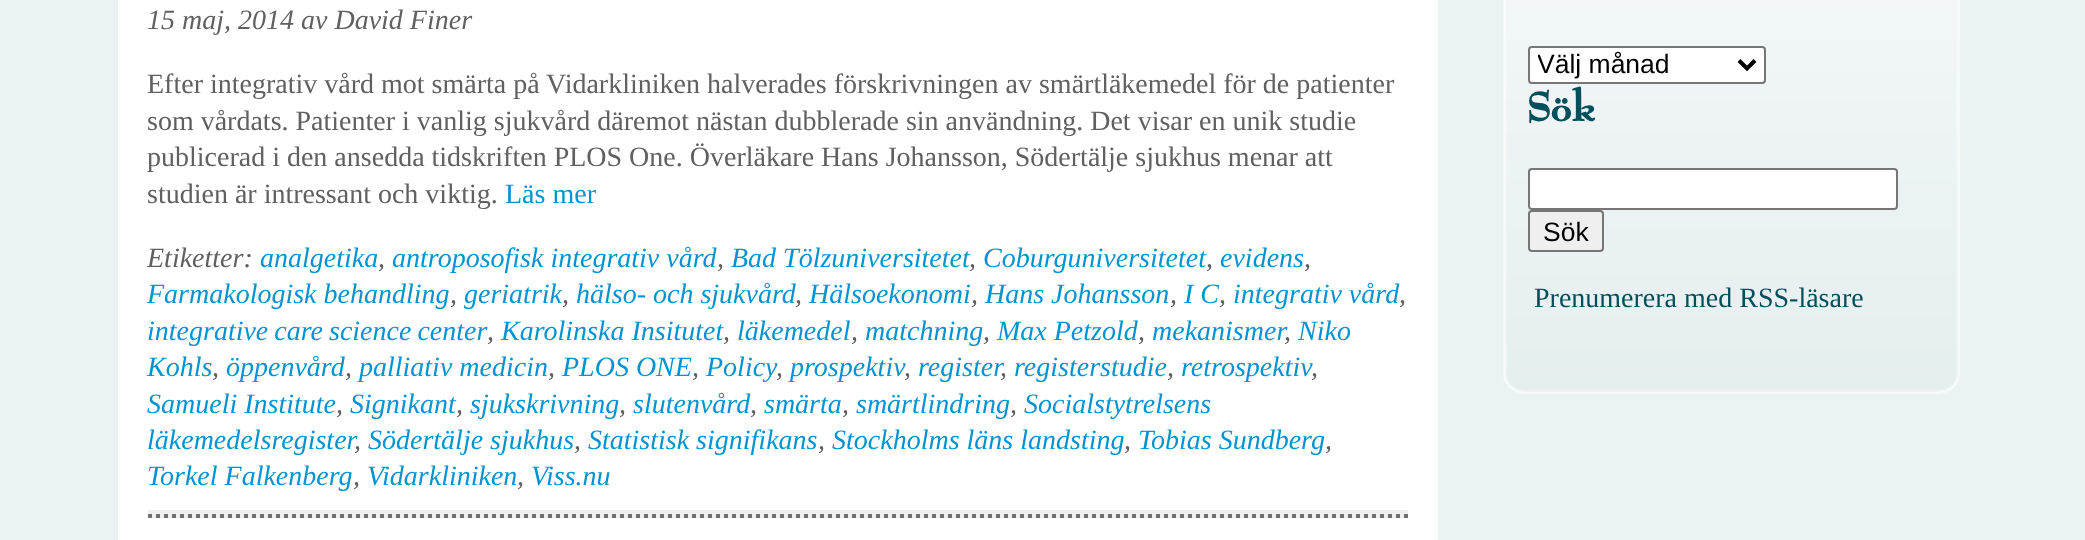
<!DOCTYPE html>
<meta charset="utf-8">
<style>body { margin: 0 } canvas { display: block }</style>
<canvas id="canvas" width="2085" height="540"></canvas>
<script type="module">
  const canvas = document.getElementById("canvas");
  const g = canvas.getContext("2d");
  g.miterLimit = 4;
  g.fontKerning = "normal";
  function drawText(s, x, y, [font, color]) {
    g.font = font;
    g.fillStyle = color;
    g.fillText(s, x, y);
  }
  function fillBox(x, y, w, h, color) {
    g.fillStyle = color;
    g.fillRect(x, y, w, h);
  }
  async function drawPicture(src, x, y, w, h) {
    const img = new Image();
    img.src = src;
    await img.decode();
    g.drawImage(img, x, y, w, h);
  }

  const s1 = ["italic 28px Liberation Serif", "#606060"];
  const s2 = ["28px Liberation Serif", "#606060"];
  const s3 = ["28px Liberation Serif", "#0093D1"];
  const s4 = ["italic 28px Liberation Serif", "#0093D1"];
  const s5 = ["26.5px Liberation Sans", "#000000"];
  const s6 = ["bold 42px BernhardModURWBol", "#004F5A"];
  const s7 = ["28px Liberation Serif", "#004F5A"];

  fillBox(0, 0, 2085, 540, "#EAF2F3");
  fillBox(118, 0, 1320, 540, "#FFFFFF");
  drawText("15 maj, 2014 av David Finer", 147, 29, s1);
  drawText("Efter integrativ vård mot smärta på Vidarkliniken halverades förskrivningen av smärtläkemedel för de patienter", 147, 93, s2);
  drawText("som vårdats. Patienter i vanlig sjukvård däremot nästan dubblerade sin användning. Det visar en unik studie", 147, 130, s2);
  drawText("publicerad i den ansedda tidskriften PLOS One. Överläkare Hans Johansson, Södertälje sjukhus menar att", 147, 166, s2);
  drawText("studien är intressant och viktig.", 147, 203, s2);
  drawText("Läs mer", 505, 203, s3);
  drawText("Etiketter:", 147, 267, s1);
  drawText("analgetika", 260, 267, s4);
  drawText(",", 378, 267, s1);
  drawText("antroposofisk integrativ vård", 392, 267, s4);
  drawText(",", 717, 267, s1);
  drawText("Bad Tölzuniversitetet", 731, 267, s4);
  drawText(",", 969, 267, s1);
  drawText("Coburguniversitetet", 983, 267, s4);
  drawText(",", 1206, 267, s1);
  drawText("evidens", 1220, 267, s4);
  drawText(",", 1304, 267, s1);
  drawText("Farmakologisk behandling", 147, 303, s4);
  drawText(",", 450, 303, s1);
  drawText("geriatrik", 464, 303, s4);
  drawText(",", 562, 303, s1);
  drawText("hälso- och sjukvård", 576, 303, s4);
  drawText(",", 795, 303, s1);
  drawText("Hälsoekonomi", 809, 303, s4);
  drawText(",", 971, 303, s1);
  drawText("Hans Johansson", 985, 303, s4);
  drawText(",", 1170, 303, s1);
  drawText("I C", 1184, 303, s4);
  drawText(",", 1219, 303, s1);
  drawText("integrativ vård", 1233, 303, s4);
  drawText(",", 1399, 303, s1);
  g.wordSpacing = "-1px";
  drawText("integrative care science center", 147, 340, s4);
  g.wordSpacing = "0px";
  drawText(",", 487, 340, s1);
  drawText("Karolinska Insitutet", 501, 340, s4);
  drawText(",", 723, 340, s1);
  drawText("läkemedel", 737, 340, s4);
  drawText(",", 851, 340, s1);
  drawText("matchning", 865, 340, s4);
  drawText(",", 983, 340, s1);
  drawText("Max Petzold", 997, 340, s4);
  drawText(",", 1138, 340, s1);
  drawText("mekanismer", 1152, 340, s4);
  drawText("Niko", 1298, 340, s4);
  drawText(",", 1284, 340, s1);
  drawText("Kohls", 147, 376, s4);
  drawText(",", 212, 376, s1);
  drawText("öppenvård", 226, 376, s4);
  drawText(",", 345, 376, s1);
  drawText("palliativ medicin", 359, 376, s4);
  drawText(",", 548, 376, s1);
  drawText("PLOS ONE", 562, 376, s4);
  drawText(",", 692, 376, s1);
  drawText("Policy", 706, 376, s4);
  drawText(",", 776, 376, s1);
  drawText("prospektiv", 790, 376, s4);
  drawText(",", 904, 376, s1);
  drawText("register", 918, 376, s4);
  drawText("registerstudie", 1014, 376, s4);
  drawText("retrospektiv", 1181, 376, s4);
  drawText(",", 1000, 376, s1);
  drawText(",", 1167, 376, s1);
  drawText(",", 1311, 376, s1);
  drawText("Samueli Institute", 147, 413, s4);
  drawText(",", 336, 413, s1);
  drawText("Signikant", 350, 413, s4);
  drawText(",", 456, 413, s1);
  drawText("sjukskrivning", 470, 413, s4);
  drawText(",", 619, 413, s1);
  drawText("slutenvård", 633, 413, s4);
  drawText(",", 750, 413, s1);
  drawText("smärta", 764, 413, s4);
  drawText(",", 842, 413, s1);
  drawText("smärtlindring", 856, 413, s4);
  drawText(",", 1010, 413, s1);
  drawText("Socialstytrelsens", 1024, 413, s4);
  drawText("läkemedelsregister", 147, 449, s4);
  drawText("Södertälje sjukhus", 368, 449, s4);
  drawText("Statistisk signifikans", 588, 449, s4);
  drawText("Stockholms läns landsting", 832, 449, s4);
  drawText("Tobias Sundberg", 1138, 449, s4);
  drawText(",", 354, 449, s1);
  drawText(",", 574, 449, s1);
  drawText(",", 818, 449, s1);
  drawText(",", 1124, 449, s1);
  drawText(",", 1325, 449, s1);
  drawText("Torkel Falkenberg", 147, 485, s4);
  drawText(",", 353, 485, s1);
  drawText("Vidarkliniken", 367, 485, s4);
  drawText(",", 517, 485, s1);
  drawText("Viss.nu", 531, 485, s4);
  fillBox(148, 510, 1260, 8, "#EFEFEF");
  g.beginPath();
  g.moveTo(148, 516);
  g.lineTo(1408, 516);
  g.strokeStyle = "#707070";
  g.lineWidth = 4;
  g.setLineDash([4, 4]);
  g.stroke();
  await drawPicture("pic1.png", 1503, 0, 457, 396);
  g.fillStyle = "#FFFFFF";
  g.beginPath();
  g.roundRect(1529, 47, 236, 36, 3);
  g.fill();
  g.strokeStyle = "#767676";
  g.lineWidth = 2;
  g.setLineDash([]);
  g.stroke();
  g.beginPath();
  g.moveTo(1739, 60.5);
  g.lineTo(1747, 68.5);
  g.lineTo(1755, 60.5);
  g.strokeStyle = "#000000";
  g.lineWidth = 4;
  g.stroke();
  g.save();
  g.beginPath();
  g.rect(1538, 48, 194, 34);
  g.clip();
  drawText("Välj månad", 1537, 73, s5);
  g.restore();
  drawText("Sök", 1527, 121, s6);
  g.fillStyle = "#FFFFFF";
  g.beginPath();
  g.roundRect(1529, 169, 368, 40, 3);
  g.fill();
  g.strokeStyle = "#767676";
  g.lineWidth = 2;
  g.stroke();
  g.fillStyle = "#EFEFEF";
  g.beginPath();
  g.roundRect(1529, 211, 74, 40, 3);
  g.fill();
  g.stroke();
  drawText("Sök", 1543, 241, s5);
  drawText("Prenumerera med RSS-läsare", 1534, 307, s7);
</script>
